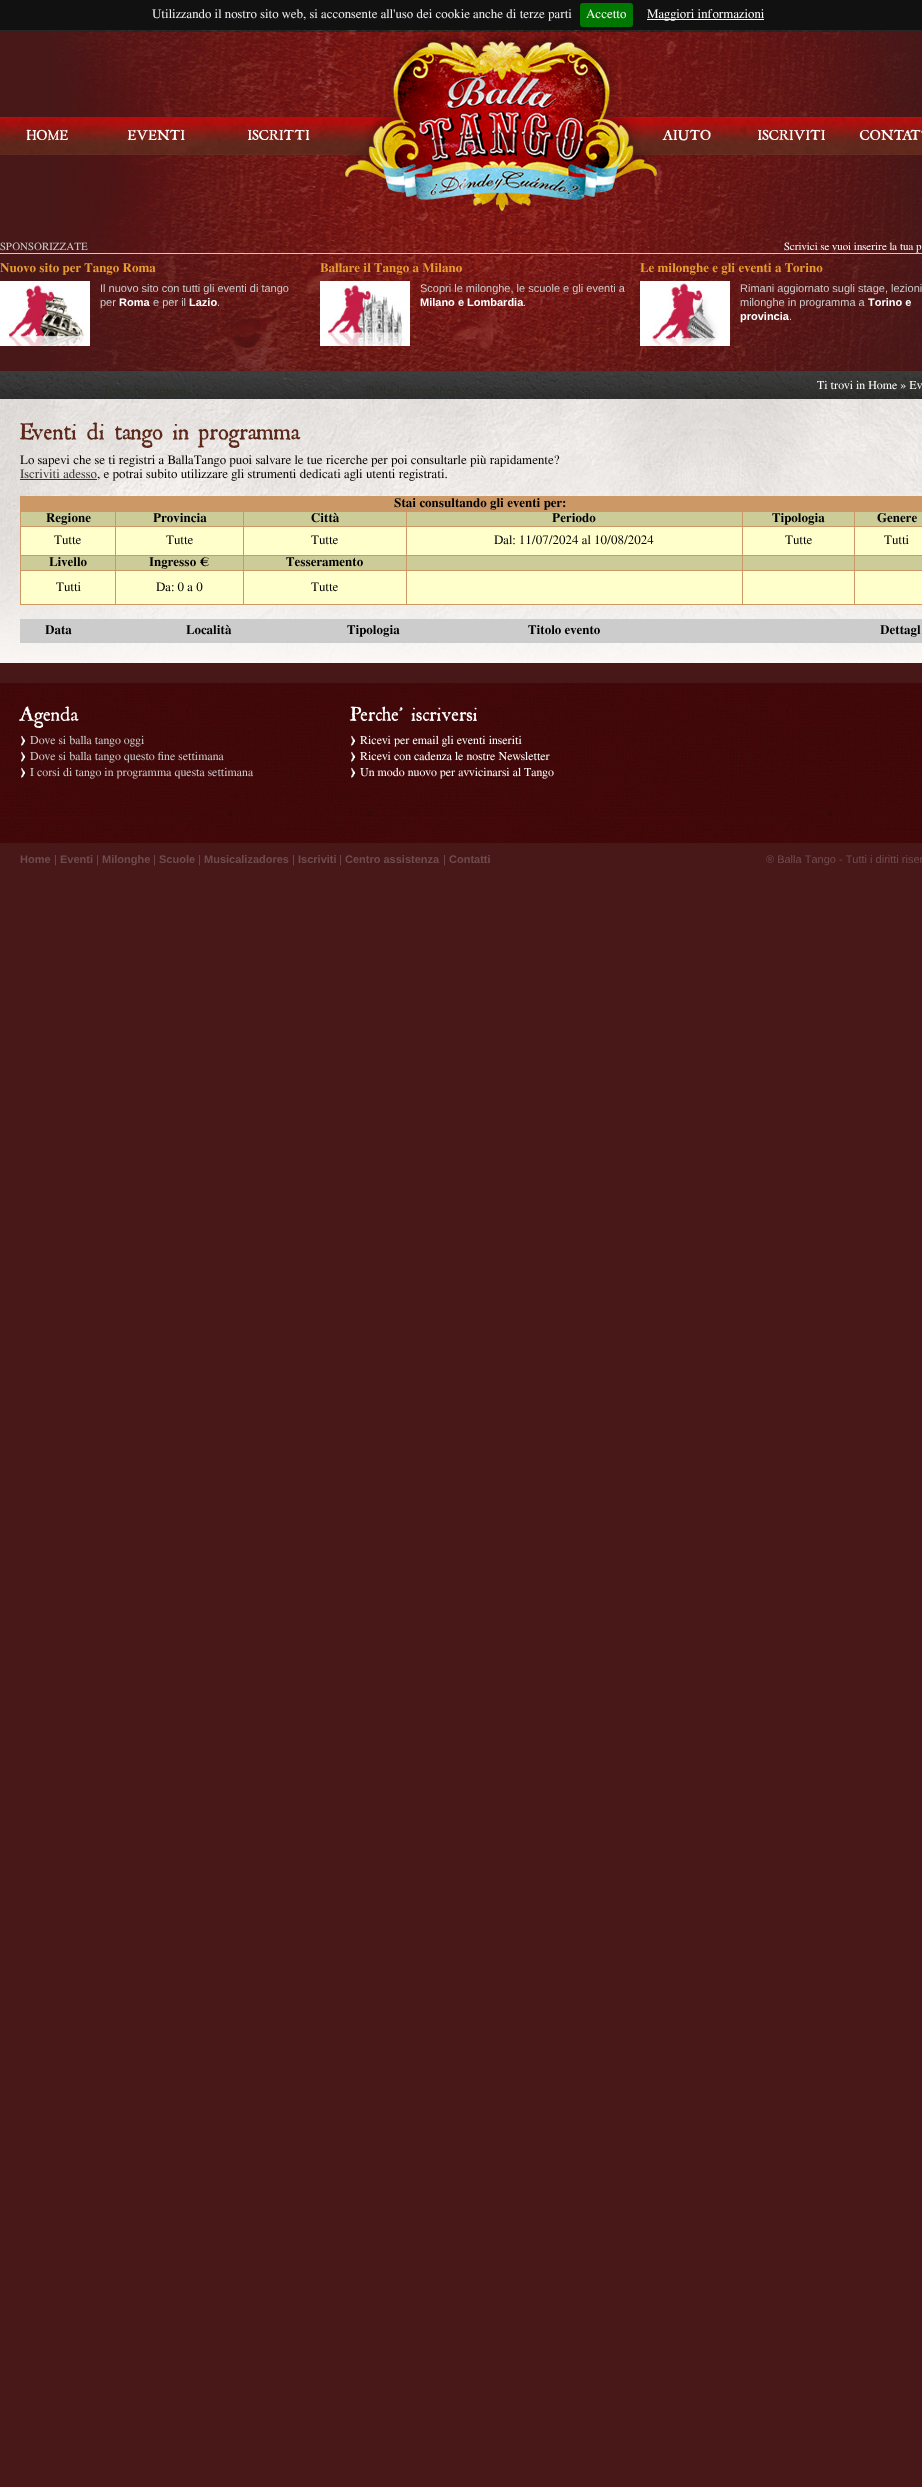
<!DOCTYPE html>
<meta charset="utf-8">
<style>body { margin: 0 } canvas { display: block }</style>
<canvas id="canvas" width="922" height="2487"></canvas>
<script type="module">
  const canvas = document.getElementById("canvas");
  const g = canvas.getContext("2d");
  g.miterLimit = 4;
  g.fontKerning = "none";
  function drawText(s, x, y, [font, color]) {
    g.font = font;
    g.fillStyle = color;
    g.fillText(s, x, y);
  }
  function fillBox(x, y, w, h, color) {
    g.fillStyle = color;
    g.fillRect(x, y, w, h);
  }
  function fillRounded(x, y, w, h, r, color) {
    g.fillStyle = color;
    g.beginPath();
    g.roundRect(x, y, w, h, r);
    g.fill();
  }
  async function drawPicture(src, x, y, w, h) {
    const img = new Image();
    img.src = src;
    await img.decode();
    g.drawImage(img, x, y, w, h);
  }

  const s1 = ["13px FreeSerif", "#EEEEEE"];
  const s2 = ["13px FreeSerif", "#FFFFFF"];
  const s3 = ["11px FreeSerif", "#CCCCCC"];
  const s4 = ["11px FreeSerif", "#FFFFFF"];
  const s5 = ["bold 13px FreeSerif", "#E89B2F"];
  const s6 = ["11px Liberation Sans", "#CCCCCC"];
  const s7 = ["bold 11px Liberation Sans", "#FFFFFF"];
  const s8 = ["12px FreeSerif", "#FFFFFF"];
  const s9 = ["13px FreeSerif", "#000000"];
  const s10 = ["13px FreeSerif", "#333333"];
  const s11 = ["bold 13px FreeSerif", "#000000"];
  const s12 = ["12px FreeSerif", "#CCCCCC"];
  const s13 = ["bold 11px Liberation Sans", "#704B4C"];
  const s14 = ["11px Liberation Sans", "#704B4C"];

  fillBox(0, 0, 922, 2487, "#481819");
  await drawPicture("pic1.png", 0, 30, 51, 2);
  fillBox(0, 0, 922, 30, "#111111");
  drawText("Utilizzando il nostro sito web, si acconsente all'uso dei cookie", 152, 18, s1);
  drawText("anche di terze parti", 473, 18, s1);
  fillRounded(580, 3, 53, 24, 3, "#007700");
  drawText("Accetto", 586, 18, s2);
  fillBox(647, 19, 117, 1, "#FFFFFF");
  drawText("Maggiori informazioni", 647, 18, s2);
  await drawPicture("pic2.png", 51, 30, 871, 341);
  await drawPicture("pic3.png", 0, 117, 922, 38);
  await drawPicture("pic4.png", 341, 32, 320, 179);
  await drawPicture("pic5.png", 26, 129, 42, 12);
  await drawPicture("pic6.png", 127, 129, 58, 12);
  await drawPicture("pic7.png", 247, 129, 63, 11);
  await drawPicture("pic8.png", 662, 129, 49, 12);
  await drawPicture("pic9.png", 757, 129, 68, 12);
  await drawPicture("pic10.png", 859, 129, 63, 12);
  fillBox(0, 253, 922, 1, "#CCCCCC");
  drawText("SPONSORIZZATE", 0, 250, s3);
  drawText("Scrivici se vuoi inserire la tua p", 784, 250, s4);
  drawText("Nuovo sito per Tango Roma", 0, 272, s5);
  await drawPicture("pic11.png", 0, 281, 90, 65);
  drawText("Il nuovo sito con tutti gli eventi di tango", 100, 292, s6);
  drawText("per", 100, 306, s6);
  drawText("Roma", 119, 306, s7);
  drawText("e per il", 153, 306, s6);
  drawText("Lazio", 189, 306, s7);
  drawText(".", 217, 306, s6);
  drawText("Ballare il Tango a Milano", 320, 272, s5);
  await drawPicture("pic12.png", 320, 281, 90, 65);
  drawText("Scopri le milonghe, le scuole e gli eventi a", 420, 292, s6);
  drawText("Milano e Lombardia", 420, 306, s7);
  drawText(".", 523, 306, s6);
  drawText("Le milonghe e gli eventi a Torino", 640, 272, s5);
  await drawPicture("pic13.png", 640, 281, 90, 65);
  drawText("Rimani aggiornato sugli stage, lezioni", 740, 292, s6);
  drawText("milonghe in programma a", 740, 306, s6);
  drawText("Torino e", 868, 306, s7);
  drawText("provincia", 740, 320, s7);
  drawText(".", 789, 320, s6);
  await drawPicture("pic14.png", 0, 371, 922, 28);
  drawText("Ti trovi in Home » Ev", 817, 389, s8);
  await drawPicture("pic15.png", 0, 399, 922, 264);
  await drawPicture("pic16.png", 20, 422, 57, 18);
  await drawPicture("pic17.png", 87, 422, 17, 18);
  await drawPicture("pic18.png", 115, 426, 48, 22);
  await drawPicture("pic19.png", 172, 424, 17, 16);
  await drawPicture("pic20.png", 198, 429, 103, 19);
  drawText("Lo sapevi che se ti registri a BallaTango puoi salvare le tue ricerche", 20, 464, s9);
  drawText("per poi consultarle più rapidamente?", 371, 464, s9);
  drawText("Iscriviti adesso", 20, 478, s10);
  fillBox(20, 479, 77, 1, "#333333");
  drawText(", e potrai subito utilizzare gli strumenti dedicati agli utenti registrati.", 97, 478, s9);
  fillBox(20, 496, 902, 109, "#CC9966");
  drawText("Stai consultando gli eventi per:", 394, 507, s11);
  fillBox(21, 512, 94, 14, "#CCCC99");
  drawText("Regione", 46, 522, s11);
  fillBox(116, 512, 127, 14, "#CCCC99");
  drawText("Provincia", 153, 522, s11);
  fillBox(244, 512, 162, 14, "#CCCC99");
  drawText("Città", 311, 522, s11);
  fillBox(407, 512, 335, 14, "#CCCC99");
  drawText("Periodo", 552, 522, s11);
  fillBox(743, 512, 111, 14, "#CCCC99");
  drawText("Tipologia", 772, 522, s11);
  fillBox(855, 512, 67, 14, "#CCCC99");
  drawText("Genere", 877, 522, s11);
  fillBox(21, 527, 94, 28, "#FFFFCC");
  drawText("Tutte", 54, 544, s9);
  fillBox(116, 527, 127, 28, "#FFFFCC");
  drawText("Tutte", 166, 544, s9);
  fillBox(244, 527, 162, 28, "#FFFFCC");
  drawText("Tutte", 311, 544, s9);
  fillBox(407, 527, 335, 28, "#FFFFCC");
  drawText("Dal: 11/07/2024 al 10/08/2024", 494, 544, s9);
  fillBox(743, 527, 111, 28, "#FFFFCC");
  drawText("Tutte", 785, 544, s9);
  fillBox(855, 527, 67, 28, "#FFFFCC");
  drawText("Tutti", 884, 544, s9);
  fillBox(21, 556, 94, 14, "#CCCC99");
  drawText("Livello", 49, 566, s11);
  fillBox(116, 556, 127, 14, "#CCCC99");
  drawText("Ingresso €", 149, 566, s11);
  fillBox(244, 556, 162, 14, "#CCCC99");
  drawText("Tesseramento", 286, 566, s11);
  fillBox(407, 556, 335, 14, "#CCCC99");
  fillBox(743, 556, 111, 14, "#CCCC99");
  fillBox(855, 556, 67, 14, "#CCCC99");
  fillBox(21, 571, 94, 33, "#FFFFCC");
  drawText("Tutti", 56, 591, s9);
  fillBox(116, 571, 127, 33, "#FFFFCC");
  drawText("Da: 0 a 0", 156, 591, s9);
  fillBox(244, 571, 162, 33, "#FFFFCC");
  drawText("Tutte", 311, 591, s9);
  fillBox(407, 571, 335, 33, "#FFFFCC");
  fillBox(743, 571, 111, 33, "#FFFFCC");
  fillBox(855, 571, 67, 33, "#FFFFCC");
  fillBox(20, 619, 902, 24, "#CCCCCC");
  drawText("Data", 45, 634, s11);
  drawText("Località", 186, 634, s11);
  drawText("Tipologia", 347, 634, s11);
  drawText("Titolo evento", 528, 634, s11);
  drawText("Dettagl", 880, 634, s11);
  await drawPicture("pic21.png", 0, 683, 922, 160);
  await drawPicture("pic22.png", 19, 706, 60, 22);
  await drawPicture("pic23.png", 21, 735, 4, 11);
  drawText("Dove si balla tango oggi", 30, 744, s12);
  await drawPicture("pic24.png", 21, 751, 4, 11);
  drawText("Dove si balla tango questo fine settimana", 30, 760, s12);
  await drawPicture("pic25.png", 21, 767, 4, 11);
  drawText("I corsi di tango in programma questa settimana", 30, 776, s12);
  await drawPicture("pic26.png", 349, 706, 54, 15);
  await drawPicture("pic27.png", 411, 707, 66, 14);
  await drawPicture("pic28.png", 351, 735, 4, 11);
  drawText("Ricevi per email gli eventi inseriti", 360, 744, s8);
  await drawPicture("pic29.png", 351, 751, 4, 11);
  drawText("Ricevi con cadenza le nostre Newsletter", 360, 760, s8);
  await drawPicture("pic30.png", 351, 767, 4, 11);
  drawText("Un modo nuovo per avvicinarsi al Tango", 360, 776, s8);
  drawText("Home", 20, 863, s13);
  drawText("|", 54, 863, s14);
  drawText("Eventi", 60, 863, s13);
  drawText("|", 96, 863, s14);
  drawText("Milonghe", 102, 863, s13);
  drawText("|", 153, 863, s14);
  drawText("Scuole", 159, 863, s13);
  drawText("|", 198, 863, s14);
  drawText("Musicalizadores", 204, 863, s13);
  drawText("|", 292, 863, s14);
  drawText("Iscriviti", 298, 863, s13);
  drawText("|", 339, 863, s14);
  drawText("Centro assistenza", 345, 863, s13);
  drawText("|", 443, 863, s14);
  drawText("Contatti", 449, 863, s13);
  drawText("® Balla Tango - Tutti i diritti riser", 766, 863, s14);
</script>
